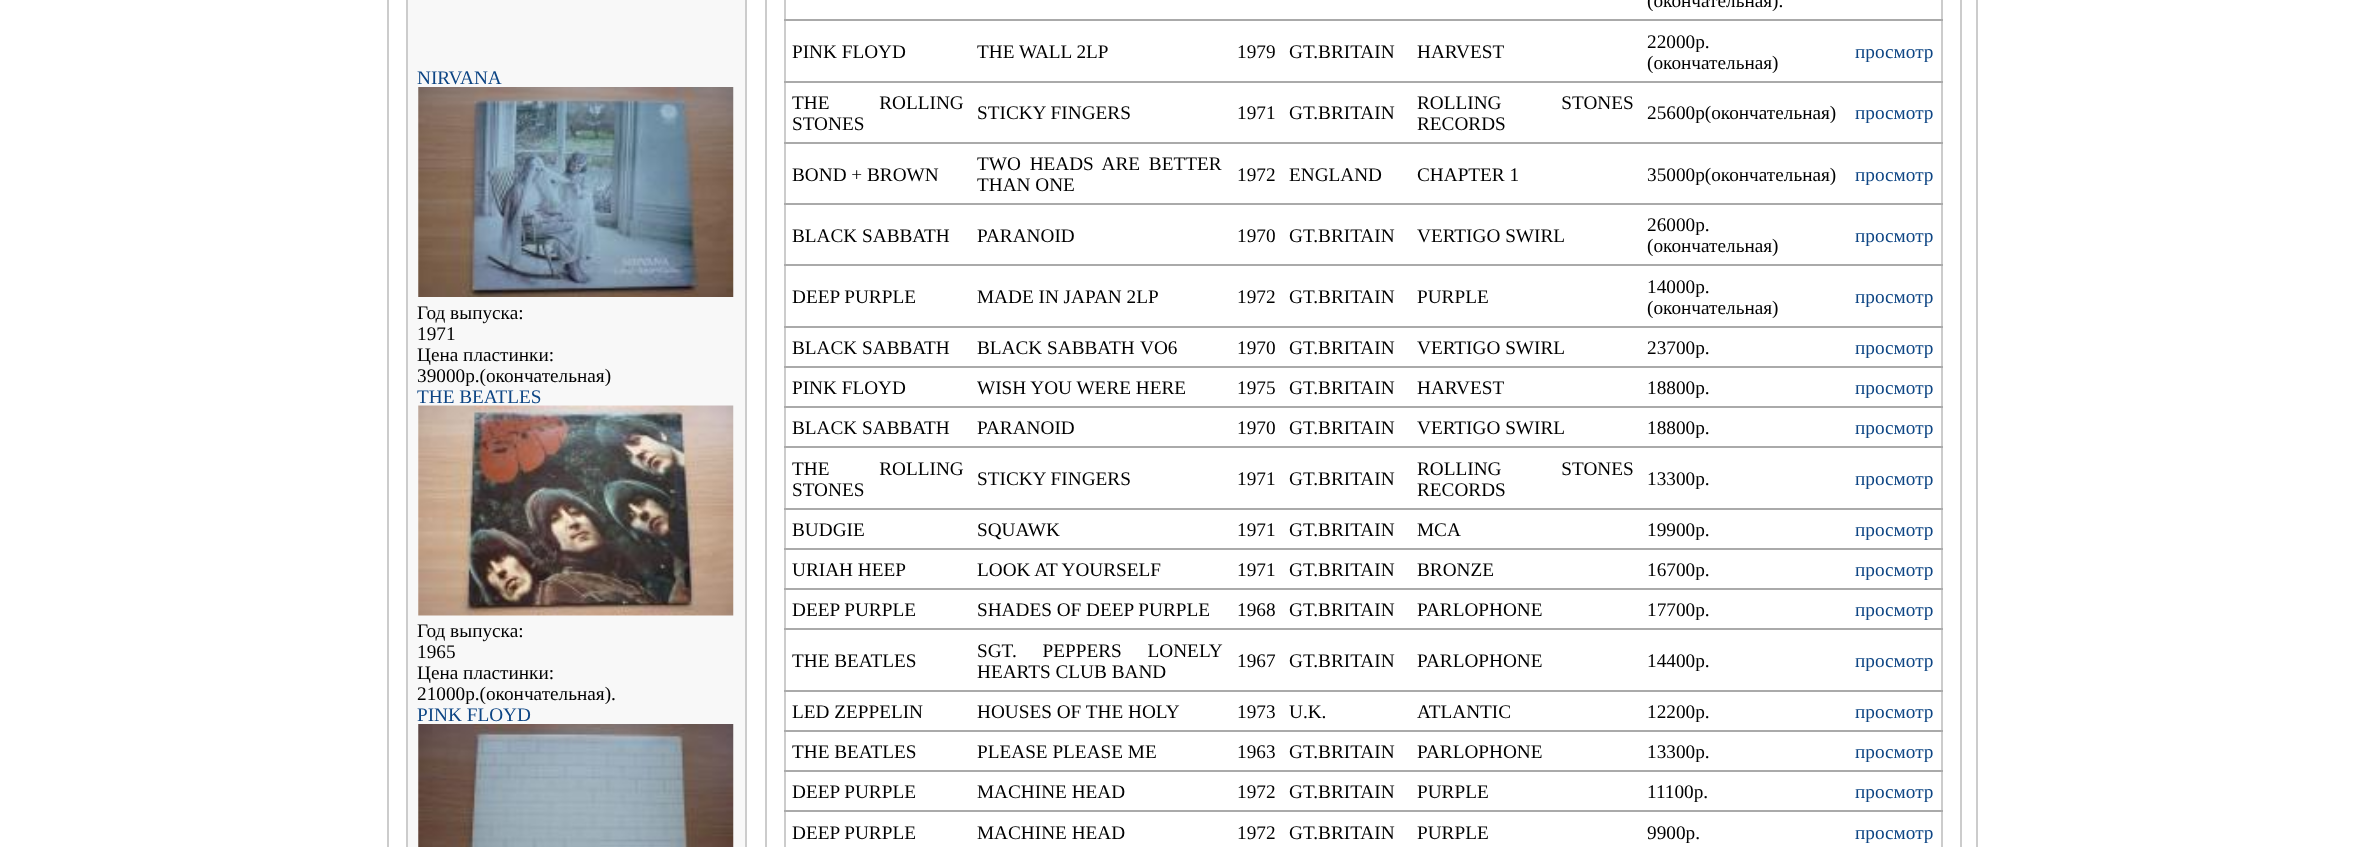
<!DOCTYPE html>
<meta charset="utf-8">
<style>body { margin: 0 } canvas { display: block }</style>
<canvas id="canvas" width="2361" height="847"></canvas>
<script type="module">
  const canvas = document.getElementById("canvas");
  const g = canvas.getContext("2d");
  g.miterLimit = 4;
  g.fontKerning = "normal";
  function drawText(s, x, y, [font, color]) {
    g.font = font;
    g.fillStyle = color;
    g.fillText(s, x, y);
  }
  function fillBox(x, y, w, h, color) {
    g.fillStyle = color;
    g.fillRect(x, y, w, h);
  }
  async function drawPicture(src, x, y, w, h) {
    const img = new Image();
    img.src = src;
    await img.decode();
    g.drawImage(img, x, y, w, h);
  }

  const s1 = ["19.25px Liberation Serif", "#0D4584"];
  const s2 = ["19.25px Liberation Serif", "#000000"];

  fillBox(0, 0, 2361, 847, "#FFFFFF");
  g.strokeStyle = "#CCCCCC";
  g.lineWidth = 2;
  g.strokeRect(388, -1, 1589, 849);
  g.fillStyle = "#F8F8F8";
  g.beginPath();
  g.rect(407, -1, 339, 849);
  g.fill();
  g.stroke();
  drawText("NIRVANA", 417, 84, s1);
  await drawPicture("pic1.png", 418, 87, 316, 210);
  drawText("Год выпуска:", 417, 319, s2);
  drawText("1971", 417, 340, s2);
  drawText("Цена пластинки:", 417, 361, s2);
  drawText("39000р.(окончательная)", 417, 382, s2);
  drawText("THE BEATLES", 417, 403, s1);
  await drawPicture("pic2.png", 418, 405, 316, 211);
  drawText("Год выпуска:", 417, 637, s2);
  drawText("1965", 417, 658, s2);
  drawText("Цена пластинки:", 417, 679, s2);
  drawText("21000р.(окончательная).", 417, 700, s2);
  drawText("PINK FLOYD", 417, 721, s1);
  await drawPicture("pic3.png", 418, 724, 316, 123);
  g.strokeRect(766, -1, 1195, 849);
  fillBox(1941, 0, 2, 847, "#CCCCCC");
  fillBox(784, 0, 2, 847, "#CCCCCC");
  fillBox(784, 19, 1159, 2, "#AAAAAA");
  drawText("(окончательная).", 1647, 7, s2);
  fillBox(784, 81, 1159, 2, "#AAAAAA");
  drawText("PINK FLOYD", 792, 58, s2);
  drawText("THE WALL 2LP", 977, 58, s2);
  drawText("1979", 1237, 58, s2);
  drawText("GT.BRITAIN", 1289, 58, s2);
  drawText("HARVEST", 1417, 58, s2);
  drawText("22000р.", 1647, 48, s2);
  drawText("(окончательная)", 1647, 69, s2);
  drawText("просмотр", 1855, 58, s1);
  fillBox(784, 142, 1159, 2, "#AAAAAA");
  g.wordSpacing = "45px";
  drawText("THE ROLLING", 792, 109, s2);
  g.wordSpacing = "0px";
  drawText("STONES", 792, 130, s2);
  drawText("STICKY FINGERS", 977, 119, s2);
  drawText("1971", 1237, 119, s2);
  drawText("GT.BRITAIN", 1289, 119, s2);
  g.wordSpacing = "55px";
  drawText("ROLLING STONES", 1417, 109, s2);
  g.wordSpacing = "0px";
  drawText("RECORDS", 1417, 130, s2);
  drawText("25600р(окончательная)", 1647, 119, s2);
  drawText("просмотр", 1855, 119, s1);
  fillBox(784, 203, 1159, 2, "#AAAAAA");
  drawText("BOND + BROWN", 792, 181, s2);
  g.wordSpacing = "4px";
  drawText("TWO HEADS ARE BETTER", 977, 170, s2);
  g.wordSpacing = "0px";
  drawText("THAN ONE", 977, 191, s2);
  drawText("1972", 1237, 181, s2);
  drawText("ENGLAND", 1289, 181, s2);
  drawText("CHAPTER 1", 1417, 181, s2);
  drawText("35000р(окончательная)", 1647, 181, s2);
  drawText("просмотр", 1855, 181, s1);
  fillBox(784, 264, 1159, 2, "#AAAAAA");
  drawText("BLACK SABBATH", 792, 242, s2);
  drawText("PARANOID", 977, 242, s2);
  drawText("1970", 1237, 242, s2);
  drawText("GT.BRITAIN", 1289, 242, s2);
  drawText("VERTIGO SWIRL", 1417, 242, s2);
  drawText("26000р.", 1647, 231, s2);
  drawText("(окончательная)", 1647, 252, s2);
  drawText("просмотр", 1855, 242, s1);
  fillBox(784, 326, 1159, 2, "#AAAAAA");
  drawText("DEEP PURPLE", 792, 303, s2);
  drawText("MADE IN JAPAN 2LP", 977, 303, s2);
  drawText("1972", 1237, 303, s2);
  drawText("GT.BRITAIN", 1289, 303, s2);
  drawText("PURPLE", 1417, 303, s2);
  drawText("14000р.", 1647, 293, s2);
  drawText("(окончательная)", 1647, 314, s2);
  drawText("просмотр", 1855, 303, s1);
  fillBox(784, 366, 1159, 2, "#AAAAAA");
  drawText("BLACK SABBATH", 792, 354, s2);
  drawText("BLACK SABBATH", 977, 354, s2);
  drawText("VO6", 1140, 354, s2);
  drawText("1970", 1237, 354, s2);
  drawText("GT.BRITAIN", 1289, 354, s2);
  drawText("VERTIGO SWIRL", 1417, 354, s2);
  drawText("23700р.", 1647, 354, s2);
  drawText("просмотр", 1855, 354, s1);
  fillBox(784, 406, 1159, 2, "#AAAAAA");
  drawText("PINK FLOYD", 792, 394, s2);
  drawText("WISH YOU WERE HERE", 977, 394, s2);
  drawText("1975", 1237, 394, s2);
  drawText("GT.BRITAIN", 1289, 394, s2);
  drawText("HARVEST", 1417, 394, s2);
  drawText("18800р.", 1647, 394, s2);
  drawText("просмотр", 1855, 394, s1);
  fillBox(784, 446, 1159, 2, "#AAAAAA");
  drawText("BLACK SABBATH", 792, 434, s2);
  drawText("PARANOID", 977, 434, s2);
  drawText("1970", 1237, 434, s2);
  drawText("GT.BRITAIN", 1289, 434, s2);
  drawText("VERTIGO SWIRL", 1417, 434, s2);
  drawText("18800р.", 1647, 434, s2);
  drawText("просмотр", 1855, 434, s1);
  fillBox(784, 508, 1159, 2, "#AAAAAA");
  g.wordSpacing = "45px";
  drawText("THE ROLLING", 792, 475, s2);
  g.wordSpacing = "0px";
  drawText("STONES", 792, 496, s2);
  drawText("STICKY FINGERS", 977, 485, s2);
  drawText("1971", 1237, 485, s2);
  drawText("GT.BRITAIN", 1289, 485, s2);
  g.wordSpacing = "55px";
  drawText("ROLLING STONES", 1417, 475, s2);
  g.wordSpacing = "0px";
  drawText("RECORDS", 1417, 496, s2);
  drawText("13300р.", 1647, 485, s2);
  drawText("просмотр", 1855, 485, s1);
  fillBox(784, 548, 1159, 2, "#AAAAAA");
  drawText("BUDGIE", 792, 536, s2);
  drawText("SQUAWK", 977, 536, s2);
  drawText("1971", 1237, 536, s2);
  drawText("GT.BRITAIN", 1289, 536, s2);
  drawText("MCA", 1417, 536, s2);
  drawText("19900р.", 1647, 536, s2);
  drawText("просмотр", 1855, 536, s1);
  fillBox(784, 588, 1159, 2, "#AAAAAA");
  drawText("URIAH HEEP", 792, 576, s2);
  drawText("LOOK AT YOURSELF", 977, 576, s2);
  drawText("1971", 1237, 576, s2);
  drawText("GT.BRITAIN", 1289, 576, s2);
  drawText("BRONZE", 1417, 576, s2);
  drawText("16700р.", 1647, 576, s2);
  drawText("просмотр", 1855, 576, s1);
  fillBox(784, 628, 1159, 2, "#AAAAAA");
  drawText("DEEP PURPLE", 792, 616, s2);
  drawText("SHADES OF DEEP PURPLE", 977, 616, s2);
  drawText("1968", 1237, 616, s2);
  drawText("GT.BRITAIN", 1289, 616, s2);
  drawText("PARLOPHONE", 1417, 616, s2);
  drawText("17700р.", 1647, 616, s2);
  drawText("просмотр", 1855, 616, s1);
  fillBox(784, 690, 1159, 2, "#AAAAAA");
  drawText("THE BEATLES", 792, 667, s2);
  g.wordSpacing = "21px";
  drawText("SGT. PEPPERS LONELY", 977, 657, s2);
  g.wordSpacing = "0px";
  drawText("HEARTS CLUB BAND", 977, 678, s2);
  drawText("1967", 1237, 667, s2);
  drawText("GT.BRITAIN", 1289, 667, s2);
  drawText("PARLOPHONE", 1417, 667, s2);
  drawText("14400p.", 1647, 667, s2);
  drawText("просмотр", 1855, 667, s1);
  fillBox(784, 730, 1159, 2, "#AAAAAA");
  drawText("LED ZEPPELIN", 792, 718, s2);
  drawText("HOUSES OF THE HOLY", 977, 718, s2);
  drawText("1973", 1237, 718, s2);
  drawText("U.K.", 1289, 718, s2);
  drawText("ATLANTIC", 1417, 718, s2);
  drawText("12200р.", 1647, 718, s2);
  drawText("просмотр", 1855, 718, s1);
  fillBox(784, 770, 1159, 2, "#AAAAAA");
  drawText("THE BEATLES", 792, 758, s2);
  drawText("PLEASE PLEASE ME", 977, 758, s2);
  drawText("1963", 1237, 758, s2);
  drawText("GT.BRITAIN", 1289, 758, s2);
  drawText("PARLOPHONE", 1417, 758, s2);
  drawText("13300р.", 1647, 758, s2);
  drawText("просмотр", 1855, 758, s1);
  fillBox(784, 810, 1159, 2, "#AAAAAA");
  drawText("DEEP PURPLE", 792, 798, s2);
  drawText("MACHINE HEAD", 977, 798, s2);
  drawText("1972", 1237, 798, s2);
  drawText("GT.BRITAIN", 1289, 798, s2);
  drawText("PURPLE", 1417, 798, s2);
  drawText("11100p.", 1647, 798, s2);
  drawText("просмотр", 1855, 798, s1);
  drawText("DEEP PURPLE", 792, 839, s2);
  drawText("MACHINE HEAD", 977, 839, s2);
  drawText("1972", 1237, 839, s2);
  drawText("GT.BRITAIN", 1289, 839, s2);
  drawText("PURPLE", 1417, 839, s2);
  drawText("9900р.", 1647, 839, s2);
  drawText("просмотр", 1855, 839, s1);
</script>
